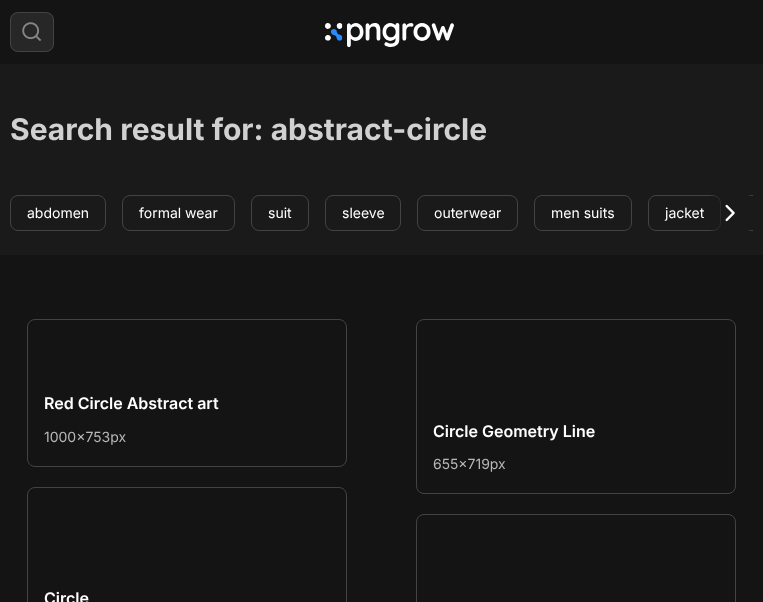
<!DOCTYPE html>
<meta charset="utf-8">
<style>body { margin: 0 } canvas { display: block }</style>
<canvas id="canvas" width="763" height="602"></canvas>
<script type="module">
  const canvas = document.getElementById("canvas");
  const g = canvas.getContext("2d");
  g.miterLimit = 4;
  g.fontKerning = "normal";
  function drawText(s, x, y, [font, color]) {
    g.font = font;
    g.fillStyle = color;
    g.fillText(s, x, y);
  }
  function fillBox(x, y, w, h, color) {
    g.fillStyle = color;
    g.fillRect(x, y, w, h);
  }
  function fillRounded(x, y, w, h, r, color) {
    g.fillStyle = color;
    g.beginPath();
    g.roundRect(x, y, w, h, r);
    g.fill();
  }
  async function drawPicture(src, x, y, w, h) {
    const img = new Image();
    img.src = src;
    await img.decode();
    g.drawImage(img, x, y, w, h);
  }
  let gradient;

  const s1 = ["bold 30px Inter", "#D1D1D1"];
  const s2 = ["14px Inter", "#FFFFFF"];
  const s3 = ["600 16px Inter", "#FFFFFF"];
  const s4 = ["14px Inter", "#B8B8B8"];

  fillBox(0, 0, 763, 602, "#141414");
  fillRounded(10, 12, 44, 40, 8, "#272727");
  await drawPicture("pic1.png", 22, 22, 20, 20);
  g.beginPath();
  g.roundRect(10.5, 12.5, 43, 39, 7.5);
  g.strokeStyle = "#434343";
  g.stroke();
  await drawPicture("pic2.png", 325, 23, 129, 24);
  fillBox(0, 64, 763, 191, "#1A1A1A");
  drawText("Search result for: abstract-circle", 10, 140, s1);
  g.beginPath();
  g.roundRect(10.5, 195.5, 95, 35, 7.5);
  g.stroke();
  drawText("abdomen", 27, 218, s2);
  g.beginPath();
  g.roundRect(122.5, 195.5, 112, 35, 7.5);
  g.stroke();
  drawText("formal wear", 139, 218, s2);
  g.beginPath();
  g.roundRect(251.5, 195.5, 57, 35, 7.5);
  g.stroke();
  drawText("suit", 268, 218, s2);
  g.beginPath();
  g.roundRect(325.5, 195.5, 75, 35, 7.5);
  g.stroke();
  drawText("sleeve", 342, 218, s2);
  g.beginPath();
  g.roundRect(417.5, 195.5, 100, 35, 7.5);
  g.stroke();
  drawText("outerwear", 434, 218, s2);
  g.beginPath();
  g.roundRect(534.5, 195.5, 97, 35, 7.5);
  g.stroke();
  drawText("men suits", 551, 218, s2);
  g.beginPath();
  g.roundRect(648.5, 195.5, 72, 35, 7.5);
  g.stroke();
  drawText("jacket", 665, 218, s2);
  g.save();
  g.beginPath();
  g.rect(10, 195, 743, 36);
  g.clip();
  g.beginPath();
  g.roundRect(737.5, 195.5, 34, 35, 7.5);
  g.stroke();
  g.restore();
  gradient = g.createLinearGradient(755, 213, 705, 213);
  gradient.addColorStop(0.5, "#1A1A1A");
  gradient.addColorStop(1, "rgba(26, 26, 26, 0)");
  g.fillStyle = gradient;
  g.beginPath();
  g.roundRect(705, 195, 50, 36, 8);
  g.fill();
  await drawPicture("pic3.png", 725, 204, 10, 18);
  g.beginPath();
  g.roundRect(27.5, 319.5, 319, 147, 7.5);
  g.stroke();
  drawText("Red Circle Abstract art", 44, 409, s3);
  drawText("1000x753px", 44, 442, s4);
  g.beginPath();
  g.roundRect(416.5, 319.5, 319, 174, 7.5);
  g.stroke();
  drawText("Circle Geometry Line", 433, 437, s3);
  drawText("655x719px", 433, 469, s4);
  g.beginPath();
  g.roundRect(27.5, 487.5, 319, 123, 7.5);
  g.stroke();
  drawText("Circle", 44, 604, s3);
  g.beginPath();
  g.roundRect(416.5, 514.5, 319, 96, 7.5);
  g.stroke();
</script>
